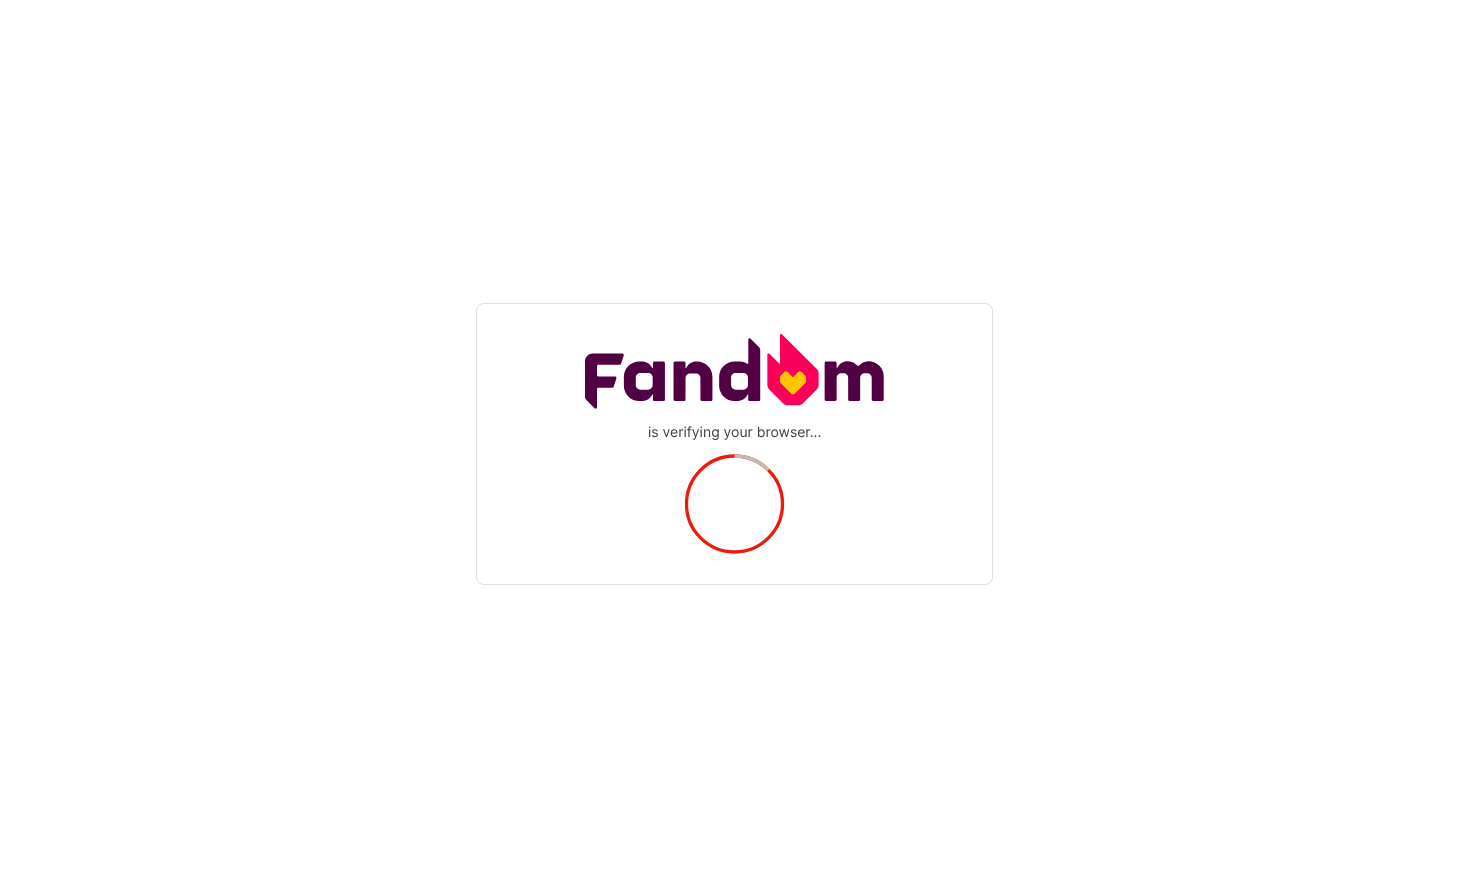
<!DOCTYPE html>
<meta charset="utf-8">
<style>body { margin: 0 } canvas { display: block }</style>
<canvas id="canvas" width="1469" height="887"></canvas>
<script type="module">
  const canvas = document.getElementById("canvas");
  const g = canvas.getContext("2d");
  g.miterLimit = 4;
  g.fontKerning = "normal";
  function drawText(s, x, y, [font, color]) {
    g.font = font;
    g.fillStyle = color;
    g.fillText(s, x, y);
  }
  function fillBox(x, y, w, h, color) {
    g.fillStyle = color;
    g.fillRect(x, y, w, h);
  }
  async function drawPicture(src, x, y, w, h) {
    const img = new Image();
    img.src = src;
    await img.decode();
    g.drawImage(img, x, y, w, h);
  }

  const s1 = ["14px Inter", "#3A424A"];

  fillBox(0, 0, 1469, 887, "#FFFFFF");
  g.beginPath();
  g.roundRect(476.5, 303.5, 516, 281, 7.5);
  g.strokeStyle = "#DCE0E4";
  g.stroke();
  await drawPicture("pic1.png", 585, 334, 299, 75);
  drawText("is verifying your browser...", 648, 437, s1);
  g.beginPath();
  g.moveTo(686.5, 504);
  g.bezierCurveTo(686.5, 477.5, 708, 456, 734.5, 456);
  g.bezierCurveTo(761, 456, 782.5, 477.5, 782.5, 504);
  g.bezierCurveTo(782.5, 530.5, 761, 552, 734.5, 552);
  g.bezierCurveTo(708, 552, 686.5, 530.5, 686.5, 504);
  g.closePath();
  g.strokeStyle = "#EB1A0C";
  g.lineWidth = 3.3;
  g.stroke();
  g.beginPath();
  g.moveTo(768.5, 470);
  g.bezierCurveTo(759.5, 461, 747, 456, 734.5, 456);
  g.strokeStyle = "#C2BAB5";
  g.stroke();
</script>
